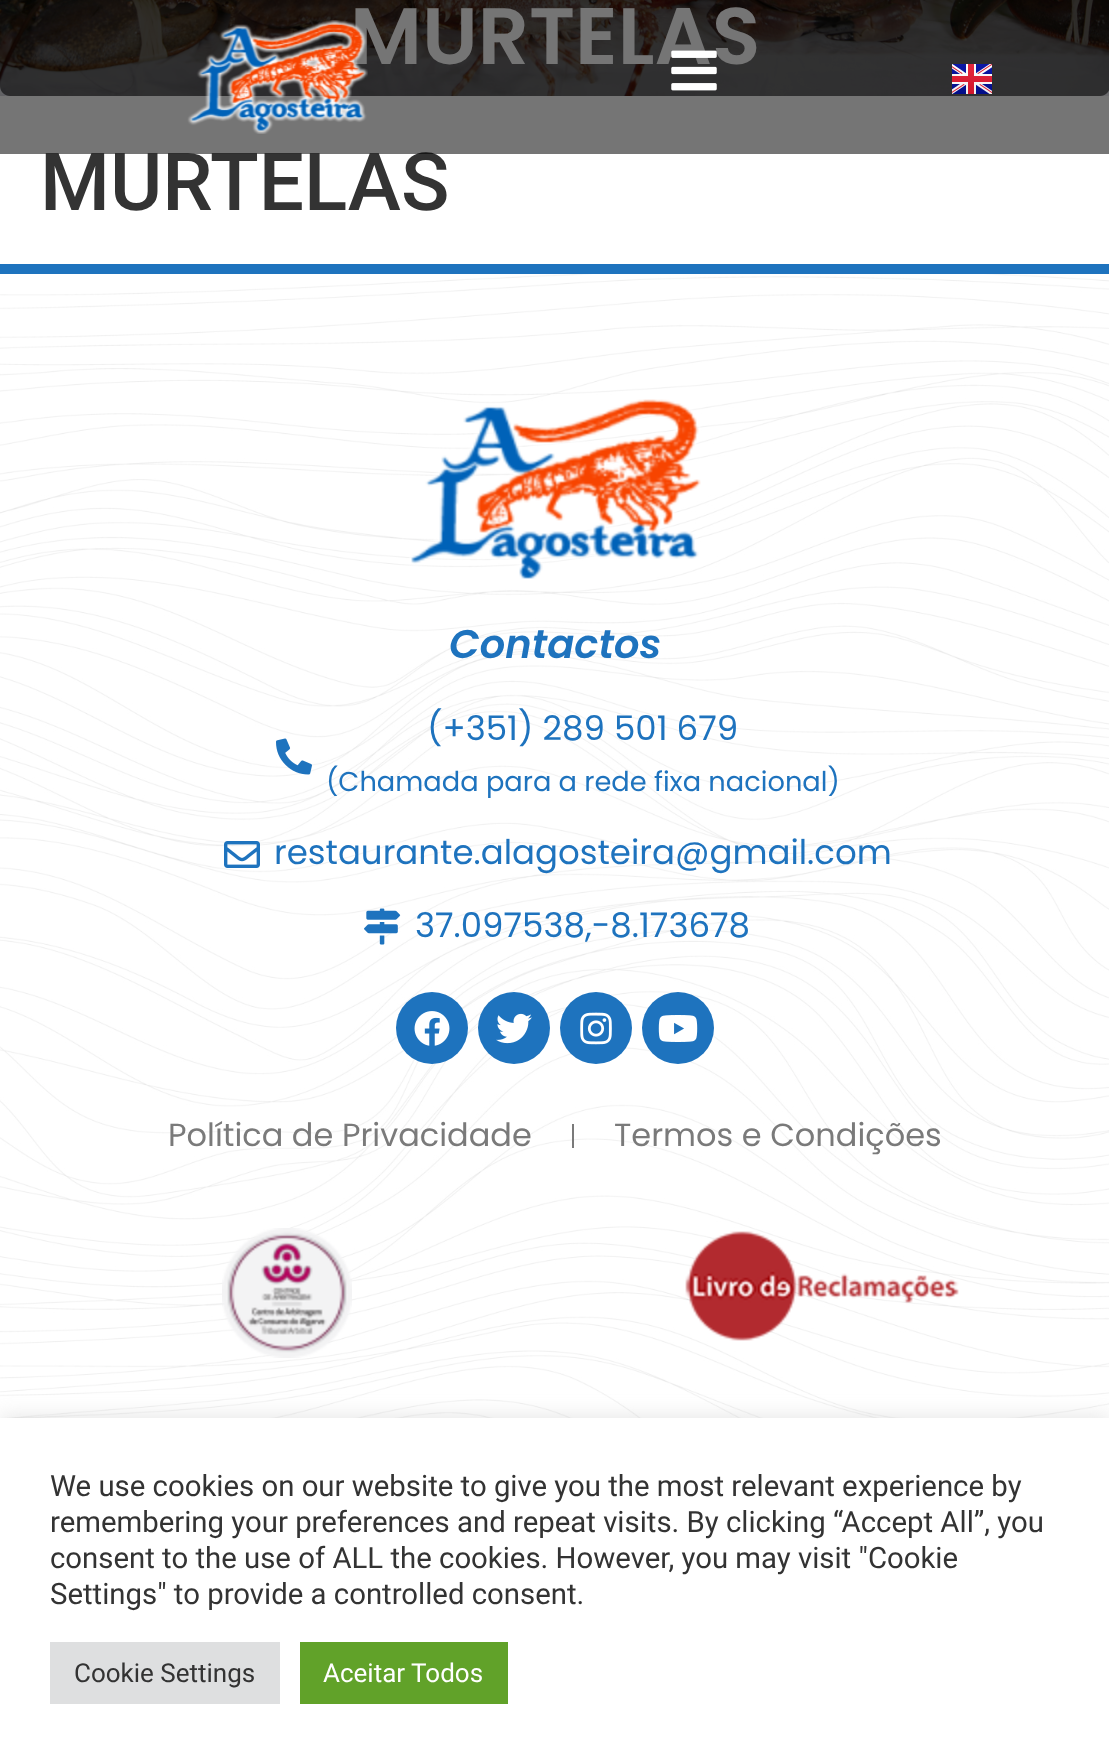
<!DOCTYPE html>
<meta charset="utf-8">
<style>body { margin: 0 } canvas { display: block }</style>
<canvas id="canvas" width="1109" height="1764"></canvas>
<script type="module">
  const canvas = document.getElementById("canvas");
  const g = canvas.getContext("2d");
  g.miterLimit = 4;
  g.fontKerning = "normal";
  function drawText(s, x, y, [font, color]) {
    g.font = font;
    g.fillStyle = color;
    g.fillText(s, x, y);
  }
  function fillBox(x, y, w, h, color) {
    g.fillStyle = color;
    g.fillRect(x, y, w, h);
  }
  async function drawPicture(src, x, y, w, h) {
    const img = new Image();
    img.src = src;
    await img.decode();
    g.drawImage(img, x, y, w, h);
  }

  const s1 = ["600 80px Poppins", "#FFFFFF"];
  const s2 = ["500 80px Roboto", "#333333"];
  const s3 = ["italic 600 40px Poppins", "#1E73BE"];
  const s4 = ["34px Poppins", "#1E73BE"];
  const s5 = ["27.25px Poppins", "#1E73BE"];
  const s6 = ["32px Poppins", "#7A7A7A"];
  const s7 = ["29.35px Roboto", "#333333"];
  const s8 = ["26px Roboto", "#333333"];
  const s9 = ["26px Roboto", "#FFFFFF"];

  fillBox(0, 0, 1109, 1764, "#FFFFFF");
  await drawPicture("pic4.png", 0, 0, 1109, 96);
  drawText("MURTELAS", 350, 64, s1);
  drawText("MURTELAS", 40, 210, s2);
  fillBox(0, 0, 1109, 154, "rgba(0, 0, 0, 0.54)");
  await drawPicture("pic1.png", 187, 20, 181, 114);
  await drawPicture("pic2.png", 671, 50, 46, 41);
  await drawPicture("pic3.png", 952, 64, 40, 30);
  await drawPicture("pic5.png", 0, 274, 1109, 1144);
  fillBox(0, 264, 1109, 10, "#1E73BE");
  await drawPicture("pic6.png", 409, 399, 292, 180);
  drawText("Contactos", 449, 658, s3);
  await drawPicture("pic7.png", 276, 738, 36, 37);
  drawText("(+351) 289 501 679", 427, 740, s4);
  drawText("(Chamada para a rede fixa nacional)", 326, 791, s5);
  await drawPicture("pic8.png", 224, 841, 36, 27);
  drawText("restaurante.alagosteira@gmail.com", 274, 864, s4);
  await drawPicture("pic9.png", 364, 908, 37, 37);
  drawText("37.097538,-8.173678", 415, 937, s4);
  g.beginPath();
  g.arc(432, 1028, 36, 0, Math.PI * 2);
  g.fill();
  await drawPicture("pic10.png", 414, 1011, 36, 35);
  g.beginPath();
  g.arc(514, 1028, 36, 0, Math.PI * 2);
  g.fill();
  await drawPicture("pic11.png", 496, 1013, 36, 31);
  g.beginPath();
  g.arc(596, 1028, 36, 0, Math.PI * 2);
  g.fill();
  await drawPicture("pic12.png", 580, 1012, 32, 33);
  g.beginPath();
  g.arc(678, 1028, 36, 0, Math.PI * 2);
  g.fill();
  await drawPicture("pic13.png", 658, 1015, 40, 27);
  drawText("Política de Privacidade", 168, 1146, s6);
  fillBox(572, 1124, 2, 24, "#7A7A7A");
  drawText("Termos e Condições", 614, 1146, s6);
  await drawPicture("pic14.png", 222, 1228, 130, 130);
  await drawPicture("pic15.png", 685, 1231, 274, 110);
  g.fillStyle = "rgba(172, 171, 171, 0.3)";
  g.filter = "blur(10px)";
  g.beginPath();
  g.rect(0, 1416, 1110, 346);
  g.fill();
  g.filter = "none";
  fillBox(0, 1418, 1109, 346, "#FFFFFF");
  drawText("We use cookies on our website to give you the most relevant experience by", 50, 1496, s7);
  drawText("remembering your preferences and repeat visits. By clicking “Accept All”, you", 50, 1532, s7);
  drawText("consent to the use of ALL the cookies. However, you may visit \"Cookie", 50, 1568, s7);
  drawText("Settings\" to provide a controlled consent.", 50, 1604, s7);
  fillBox(50, 1642, 230, 62, "#DEDFE0");
  drawText("Cookie Settings", 74, 1682, s8);
  fillBox(300, 1642, 208, 62, "#61A229");
  drawText("Aceitar Todos", 323, 1682, s9);
</script>
